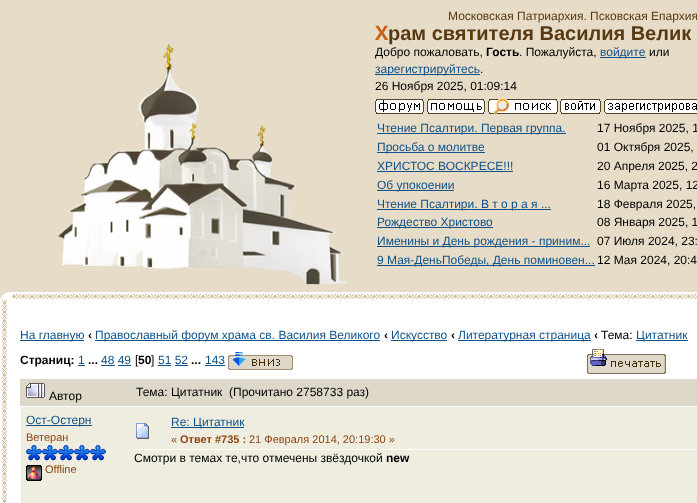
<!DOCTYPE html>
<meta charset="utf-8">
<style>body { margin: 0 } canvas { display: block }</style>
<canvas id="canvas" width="697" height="503"></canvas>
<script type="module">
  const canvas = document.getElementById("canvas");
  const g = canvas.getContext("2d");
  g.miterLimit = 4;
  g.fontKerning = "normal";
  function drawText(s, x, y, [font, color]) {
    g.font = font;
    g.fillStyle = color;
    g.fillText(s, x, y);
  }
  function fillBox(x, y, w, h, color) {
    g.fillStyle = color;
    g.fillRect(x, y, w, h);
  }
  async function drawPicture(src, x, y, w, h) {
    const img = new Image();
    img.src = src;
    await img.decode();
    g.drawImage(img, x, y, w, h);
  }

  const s1 = ["12px Liberation Sans", "#583911"];
  const s2 = ["bold 20px Noto Sans", "#C66312"];
  const s3 = ["bold 20px Liberation Sans", "#583911"];
  const s4 = ["12px Liberation Sans", "#000000"];
  const s5 = ["bold 12px Liberation Sans", "#000000"];
  const s6 = ["12px Liberation Sans", "#105289"];
  const s7 = ["11px Liberation Sans", "#8B4513"];
  const s8 = ["bold 11px Liberation Sans", "#8B4513"];

  fillBox(0, 0, 697, 503, "#E6DCC7");
  await drawPicture("pic1.png", 57, 44, 290, 241);
  drawText("Московская Патриархия. Псковская Епархия", 448, 20, s1);
  drawText("Х", 375, 40, s2);
  drawText("рам святителя Василия Велик", 388, 40, s3);
  drawText("Добро пожаловать,", 375, 56, s4);
  drawText("Гость", 486, 56, s5);
  drawText(". Пожалуйста,", 519, 56, s4);
  fillBox(600, 57, 46, 1, "#105289");
  drawText("войдите", 600, 56, s6);
  drawText("или", 649, 56, s4);
  fillBox(375, 74, 105, 1, "#105289");
  drawText("зарегистрируйтесь", 375, 73, s6);
  drawText(".", 480, 73, s4);
  drawText("26 Ноября 2025, 01:09:14", 375, 90, s4);
  await drawPicture("pic2.png", 375, 99, 49, 15);
  await drawPicture("pic3.png", 427, 99, 58, 15);
  await drawPicture("pic4.png", 488, 99, 70, 15);
  await drawPicture("pic5.png", 560, 99, 41, 15);
  await drawPicture("pic6.png", 604, 99, 93, 15);
  fillBox(377, 133, 189, 1, "#105289");
  drawText("Чтение Псалтири. Первая группа.", 377, 132, s6);
  drawText("17 Ноября 2025, 1", 597, 132, s4);
  fillBox(377, 152, 108, 1, "#105289");
  drawText("Просьба о молитве", 377, 151, s6);
  drawText("01 Октября 2025,", 597, 151, s4);
  drawText("ХРИСТОС ВОСКРЕСЕ!!!", 377, 170, s6);
  fillBox(377, 171, 136, 1, "#105289");
  drawText("20 Апреля 2025, 2", 597, 170, s4);
  fillBox(377, 190, 77, 1, "#105289");
  drawText("Об упокоении", 377, 189, s6);
  drawText("16 Марта 2025, 12", 597, 189, s4);
  fillBox(377, 209, 174, 1, "#105289");
  drawText("Чтение Псалтири. В т о р а я ...", 377, 208, s6);
  drawText("18 Февраля 2025,", 597, 208, s4);
  fillBox(377, 227, 116, 1, "#105289");
  drawText("Рождество Христово", 377, 226, s6);
  drawText("08 Января 2025, 1", 597, 226, s4);
  fillBox(377, 246, 213, 1, "#105289");
  drawText("Именины и День рождения - приним...", 377, 245, s6);
  drawText("07 Июля 2024, 23:", 597, 245, s4);
  fillBox(377, 265, 218, 1, "#105289");
  drawText("9 Мая-ДеньПобеды, День поминовен...", 377, 264, s6);
  drawText("12 Мая 2024, 20:4", 597, 264, s4);
  fillBox(0, 300, 697, 203, "#FFFFFF");
  await drawPicture("pic7.png", 2, 300, 5, 203);
  await drawPicture("pic8.png", 0, 292, 697, 8);
  fillBox(20, 340, 64, 1, "#105289");
  drawText("На главную", 20, 339, s6);
  drawText("‹", 88, 339, s5);
  fillBox(95, 340, 285, 1, "#105289");
  drawText("Православный форум храма св. Василия Великого", 95, 339, s6);
  drawText("‹", 384, 339, s5);
  fillBox(391, 340, 56, 1, "#105289");
  drawText("Искусство", 391, 339, s6);
  drawText("‹", 451, 339, s5);
  fillBox(458, 340, 133, 1, "#105289");
  drawText("Литературная страница", 458, 339, s6);
  drawText("‹", 594, 339, s5);
  drawText("Тема:", 601, 339, s4);
  fillBox(636, 340, 52, 1, "#105289");
  drawText("Цитатник", 636, 339, s6);
  drawText("Страниц:", 20, 364, s5);
  drawText("1", 78, 364, s6);
  fillBox(78, 365, 7, 1, "#105289");
  drawText("...", 88, 364, s5);
  drawText("48 49", 101, 364, s6);
  fillBox(101, 365, 14, 1, "#105289");
  drawText("[", 135, 364, s4);
  drawText("50", 138, 364, s5);
  drawText("]", 151, 364, s4);
  drawText("51 52", 158, 364, s6);
  fillBox(158, 365, 13, 1, "#105289");
  drawText("...", 191, 364, s5);
  drawText("143", 205, 364, s6);
  fillBox(205, 365, 20, 1, "#105289");
  await drawPicture("pic9.png", 228, 352, 65, 18);
  fillBox(118, 365, 13, 1, "#105289");
  fillBox(175, 365, 13, 1, "#105289");
  await drawPicture("pic10.png", 587, 349, 79, 25);
  fillBox(20, 379, 677, 27, "#DED8C9");
  await drawPicture("pic11.png", 26, 383, 19, 15);
  drawText("Автор", 49, 400, s4);
  drawText("Тема: Цитатник  (Прочитано 2758733 раз)", 136, 396, s4);
  fillBox(21, 407, 676, 96, "#EFEDDF");
  fillBox(26, 425, 66, 1, "#105289");
  drawText("Ост-Остерн", 26, 424, s6);
  drawText("Ветеран", 26, 441, s7);
  await drawPicture("pic12.png", 26, 445, 16, 16);
  await drawPicture("pic12.png", 42, 445, 16, 16);
  await drawPicture("pic12.png", 58, 445, 16, 16);
  await drawPicture("pic12.png", 74, 445, 16, 16);
  await drawPicture("pic12.png", 90, 445, 16, 16);
  await drawPicture("pic13.png", 26, 465, 16, 16);
  drawText("Offline", 45, 473, s7);
  await drawPicture("pic14.png", 136, 423, 13, 16);
  fillBox(171, 427, 73, 1, "#105289");
  drawText("Re: Цитатник", 171, 426, s6);
  drawText("«", 171, 443, s7);
  drawText("Ответ #735 :", 180, 443, s8);
  drawText("21 Февраля 2014, 20:19:30 »", 249, 443, s7);
  fillBox(134, 449, 563, 1, "#FFFFFF");
  drawText("Смотри в темах те,что отмечены звёздочкой", 134, 462, s4);
  drawText("new", 386, 462, s5);
</script>
